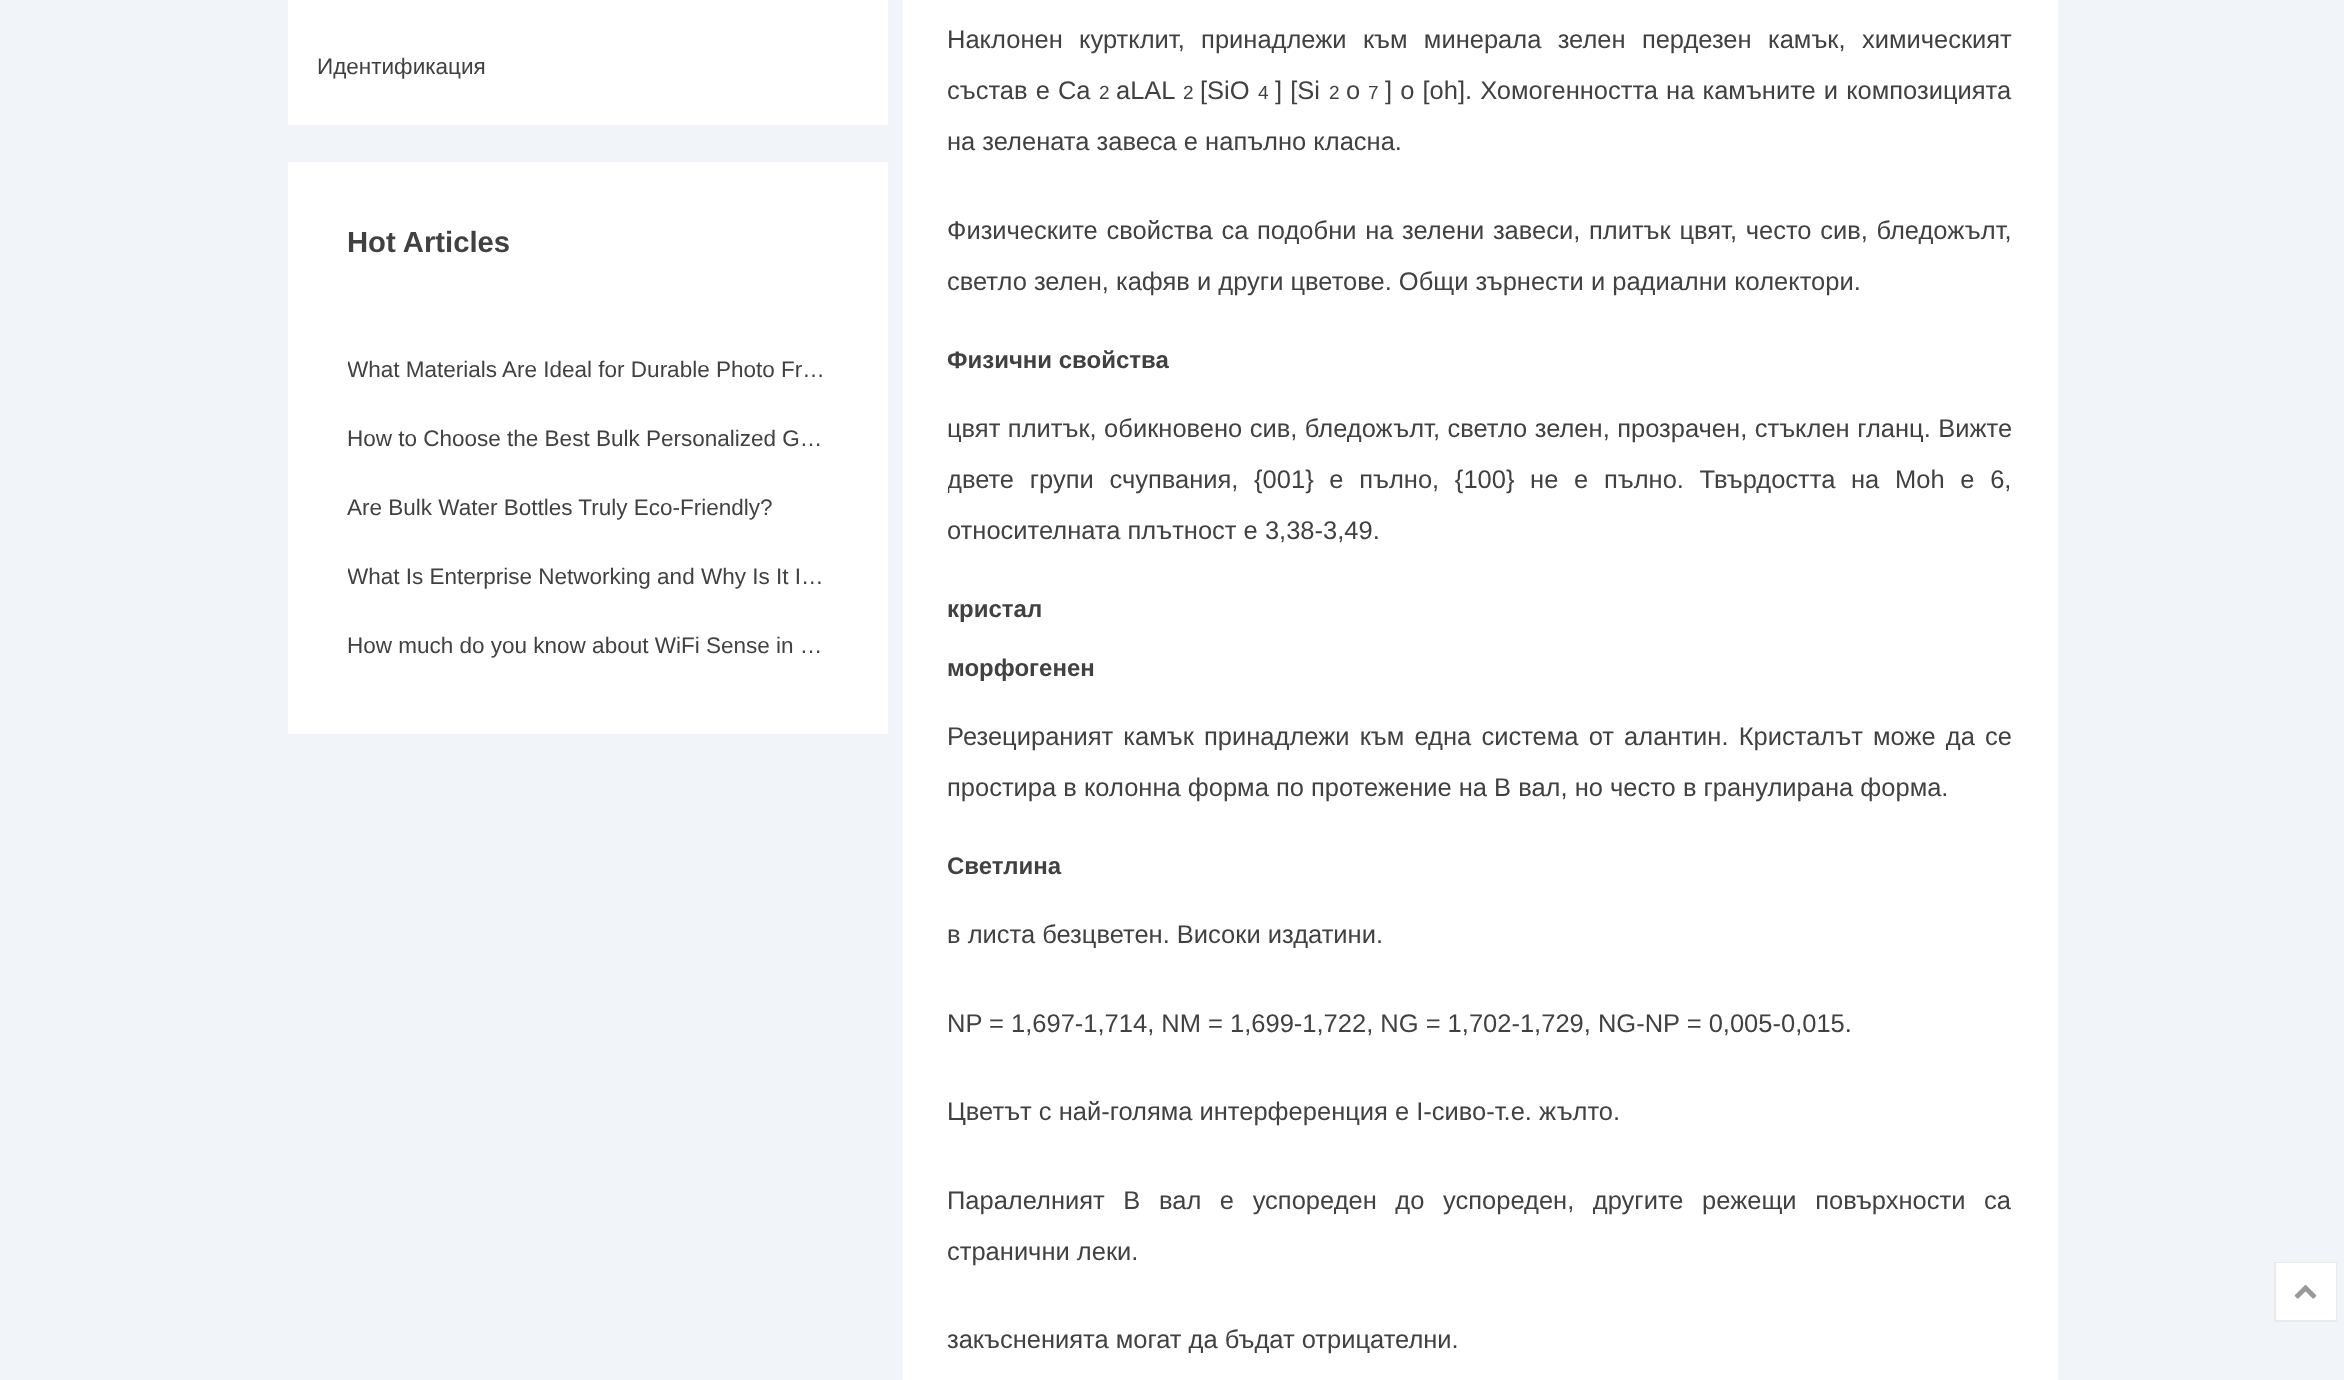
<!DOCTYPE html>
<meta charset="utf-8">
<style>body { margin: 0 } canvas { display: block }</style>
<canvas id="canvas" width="2344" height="1380"></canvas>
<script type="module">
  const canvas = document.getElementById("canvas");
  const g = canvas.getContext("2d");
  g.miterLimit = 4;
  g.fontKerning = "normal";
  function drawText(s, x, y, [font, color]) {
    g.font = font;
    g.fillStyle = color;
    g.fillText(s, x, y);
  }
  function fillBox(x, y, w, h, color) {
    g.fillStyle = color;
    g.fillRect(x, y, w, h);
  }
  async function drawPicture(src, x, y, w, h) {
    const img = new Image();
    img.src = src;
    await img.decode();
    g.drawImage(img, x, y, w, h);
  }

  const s1 = ["22.5px Liberation Sans", "#414141"];
  const s2 = ["bold 29.25px Liberation Sans", "#414141"];
  const s3 = ["25.5px Liberation Sans", "#414141"];
  const s4 = ["19px Liberation Sans", "#414141"];
  const s5 = ["bold 24px Liberation Sans", "#414141"];

  fillBox(0, 0, 2344, 1380, "#F1F4F9");
  fillBox(288, 0, 600, 125, "#FFFFFF");
  drawText("Идентификация", 317, 74, s1);
  fillBox(288, 162, 600, 572, "#FFFFFF");
  drawText("Hot Articles", 347, 252, s2);
  g.save();
  g.beginPath();
  g.rect(348, 351, 480, 36);
  g.clip();
  drawText("What Materials Are Ideal for Durable Photo Fr…", 347, 377, s1);
  g.restore();
  drawText("How to Choose the Best Bulk Personalized G…", 347, 446, s1);
  drawText("Are Bulk Water Bottles Truly Eco-Friendly?", 347, 515, s1);
  g.save();
  g.beginPath();
  g.rect(348, 558, 480, 36);
  g.clip();
  drawText("What Is Enterprise Networking and Why Is It I…", 347, 584, s1);
  g.restore();
  drawText("How much do you know about WiFi Sense in …", 347, 653, s1);
  fillBox(903, 0, 1155, 1380, "#FFFFFF");
  g.wordSpacing = "9.25px";
  drawText("Наклонен куртклит, принадлежи към минерала зелен пердезен камък, химическият", 947, 48, s3);
  g.wordSpacing = "1px";
  drawText("състав е Ca", 947, 99, s3);
  g.wordSpacing = "0px";
  drawText("2", 1099, 99, s4);
  drawText("aLAL", 1116, 99, s3);
  drawText("2", 1183, 99, s4);
  drawText("[SiO", 1200, 99, s3);
  drawText("4", 1258, 99, s4);
  g.wordSpacing = "1px";
  drawText("] [Si", 1275, 99, s3);
  g.wordSpacing = "0px";
  drawText("2", 1329, 99, s4);
  drawText("o", 1346, 99, s3);
  drawText("7", 1368, 99, s4);
  g.wordSpacing = "1px";
  drawText("] o [oh]. Хомогенността на камъните и композицията", 1385, 99, s3);
  g.wordSpacing = "0px";
  drawText("на зелената завеса е напълно класна.", 947, 150, s3);
  g.wordSpacing = "1.6px";
  drawText("Физическите свойства са подобни на зелени завеси, плитък цвят, често сив, бледожълт,", 947, 239, s3);
  g.wordSpacing = "0px";
  drawText("светло зелен, кафяв и други цветове. Общи зърнести и радиални колектори.", 947, 290, s3);
  drawText("Физични свойства", 947, 368, s5);
  g.wordSpacing = "0.4px";
  drawText("цвят плитък, обикновено сив, бледожълт, светло зелен, прозрачен, стъклен гланц. Вижте", 947, 437, s3);
  g.save();
  g.beginPath();
  g.rect(948, 0, 1065, 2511);
  g.clip();
  g.wordSpacing = "8.6px";
  drawText("двете групи счупвания, {001} е пълно, {100} не е пълно. Твърдостта на Moh е 6,", 947, 488, s3);
  g.restore();
  g.wordSpacing = "0px";
  drawText("относителната плътност е 3,38-3,49.", 947, 539, s3);
  drawText("кристал", 947, 617, s5);
  drawText("морфогенен", 947, 676, s5);
  g.wordSpacing = "3.1px";
  drawText("Резецираният камък принадлежи към една система от алантин. Кристалът може да се", 947, 745, s3);
  g.wordSpacing = "0px";
  drawText("простира в колонна форма по протежение на B вал, но често в гранулирана форма.", 947, 796, s3);
  drawText("Светлина", 947, 874, s5);
  drawText("в листа безцветен. Високи издатини.", 947, 943, s3);
  drawText("NP = 1,697-1,714, NM = 1,699-1,722, NG = 1,702-1,729, NG-NP = 0,005-0,015.", 947, 1032, s3);
  drawText("Цветът с най-голяма интерференция е I-сиво-т.е. жълто.", 947, 1120, s3);
  g.wordSpacing = "11.5px";
  drawText("Паралелният B вал е успореден до успореден, другите режещи повърхности са", 947, 1209, s3);
  g.wordSpacing = "0px";
  drawText("странични леки.", 947, 1260, s3);
  drawText("закъсненията могат да бъдат отрицателни.", 947, 1348, s3);
  g.strokeStyle = "#EAEAEA";
  g.lineWidth = 2;
  g.strokeRect(2275, 1263, 61, 58);
  fillBox(2276, 1263, 60, 57, "#FFFFFF");
  await drawPicture("pic1.png", 2294, 1284, 23, 15);
</script>
